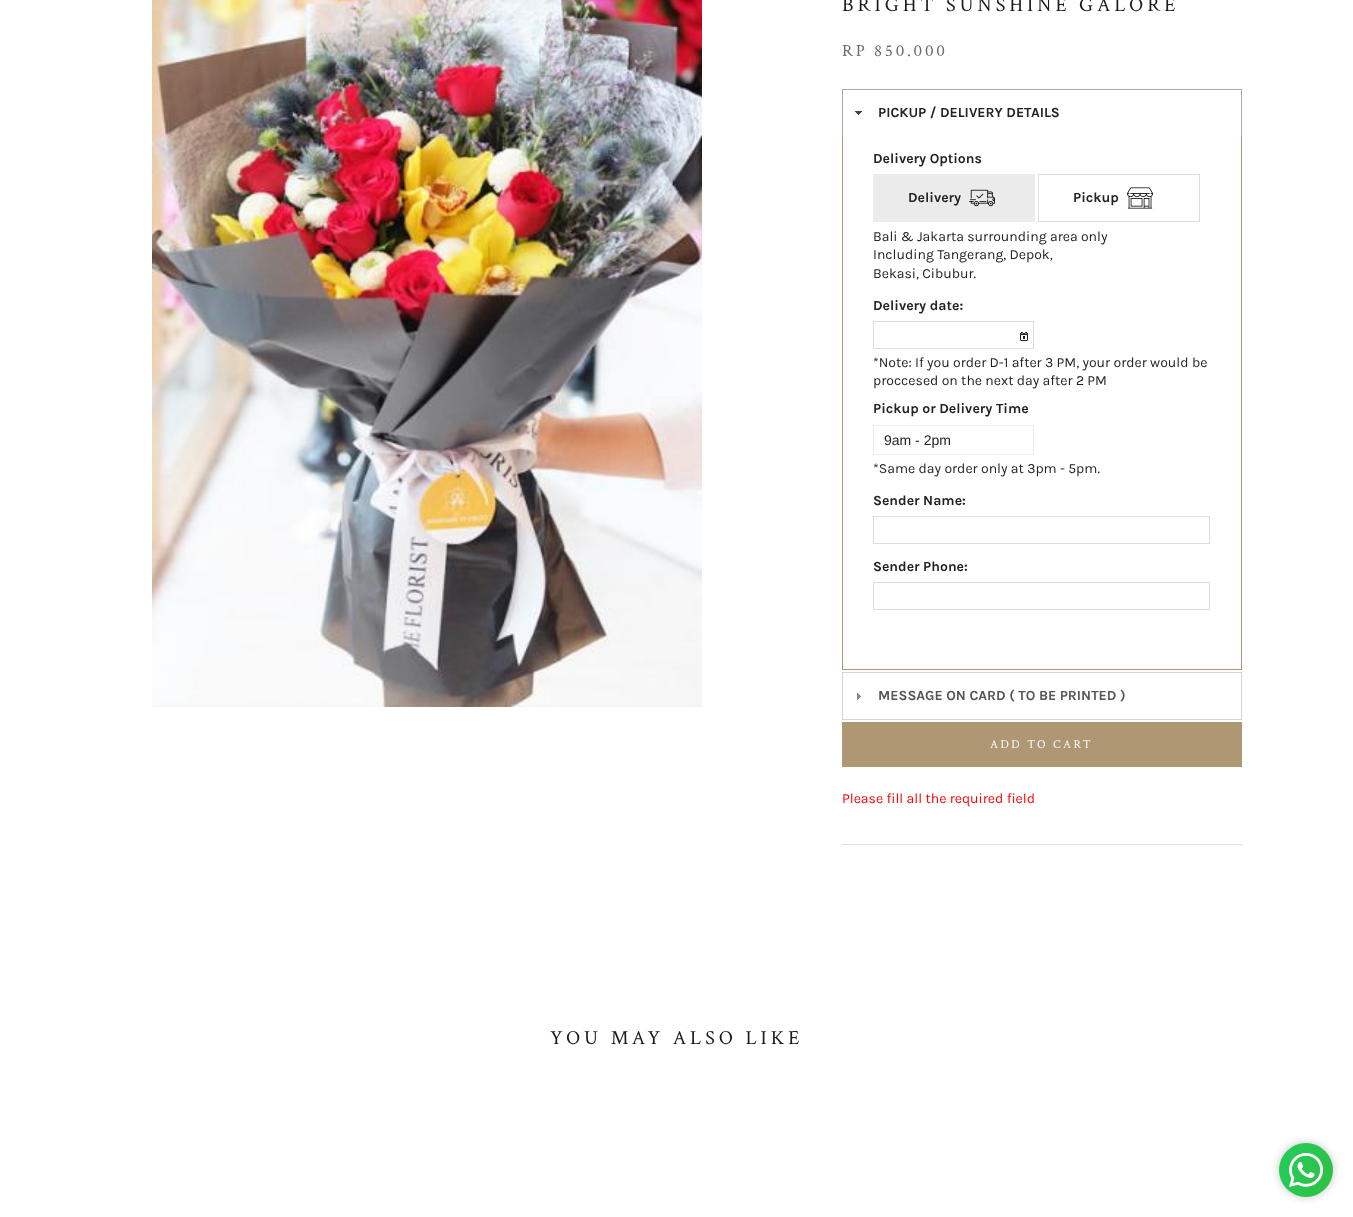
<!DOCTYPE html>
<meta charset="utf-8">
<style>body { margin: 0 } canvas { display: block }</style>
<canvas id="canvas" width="1353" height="1217"></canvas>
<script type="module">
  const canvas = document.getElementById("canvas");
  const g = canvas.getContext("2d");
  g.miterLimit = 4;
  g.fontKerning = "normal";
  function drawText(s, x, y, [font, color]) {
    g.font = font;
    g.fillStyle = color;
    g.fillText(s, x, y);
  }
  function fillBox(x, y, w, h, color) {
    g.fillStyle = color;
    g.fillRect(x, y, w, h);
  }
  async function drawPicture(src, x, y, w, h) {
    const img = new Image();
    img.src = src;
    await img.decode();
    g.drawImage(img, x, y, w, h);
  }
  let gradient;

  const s1 = ["20px Crimson Text", "#1C1B1B"];
  const s2 = ["17px Crimson Text", "#6A6A6A"];
  const s3 = ["bold 14px Karla", "#222222"];
  const s4 = ["14px Karla", "#222222"];
  const s5 = ["14px Liberation Sans", "#222222"];
  const s6 = ["bold 14px Karla", "#555555"];
  const s7 = ["12px Crimson Text", "#FFFFFF"];
  const s8 = ["14px Karla", "#FF0000"];

  fillBox(0, 0, 1353, 1217, "#FFFFFF");
  await drawPicture("pic1.png", 152, 0, 550, 707);
  g.letterSpacing = "4px";
  drawText("BRIGHT SUNSHINE GALORE", 842, 11, s1);
  g.letterSpacing = "2.75px";
  drawText("RP 850.000", 842, 56, s2);
  fillBox(842, 89, 400, 1, "#AAAAAA");
  fillBox(1241, 89, 1, 47, "#AAAAAA");
  fillBox(842, 89, 1, 47, "#AAAAAA");
  await drawPicture("pic2.png", 855, 111, 7, 4);
  g.letterSpacing = "0px";
  drawText("PICKUP / DELIVERY DETAILS", 878, 117, s3);
  fillBox(1241, 136, 1, 534, "#B09774");
  fillBox(842, 669, 400, 1, "#B09774");
  fillBox(842, 136, 1, 534, "#B09774");
  drawText("Delivery Options", 873, 163, s3);
  fillBox(873, 174, 162, 48, "#ECEBEC");
  drawText("Delivery", 908, 202, s3);
  await drawPicture("pic3.png", 969, 189, 26, 18);
  g.strokeStyle = "#DDDDDD";
  g.strokeRect(1038.5, 174.5, 161, 47);
  drawText("Pickup", 1073, 202, s3);
  await drawPicture("pic4.png", 1127, 187, 26, 22);
  drawText("Bali & Jakarta surrounding area only", 873, 241, s4);
  drawText("Including Tangerang, Depok,", 873, 259, s4);
  drawText("Bekasi, Cibubur.", 873, 278, s4);
  drawText("Delivery date:", 873, 310, s3);
  g.strokeRect(873.5, 321.5, 160, 27);
  await drawPicture("pic5.png", 1020, 332, 8, 9);
  drawText("*Note: If you order D-1 after 3 PM, your order would be", 873, 367, s4);
  drawText("proccesed on the next day after 2 PM", 873, 385, s4);
  drawText("Pickup or Delivery Time", 873, 413, s3);
  g.strokeStyle = "#ECEBEC";
  g.strokeRect(873.5, 425.5, 160, 29);
  drawText("9am - 2pm", 884, 445, s5);
  drawText("*Same day order only at 3pm - 5pm.", 873, 473, s4);
  drawText("Sender Name:", 873, 505, s3);
  g.strokeStyle = "#DDDDDD";
  g.strokeRect(873.5, 516.5, 336, 27);
  drawText("Sender Phone:", 873, 571, s3);
  g.strokeRect(873.5, 582.5, 336, 27);
  g.strokeStyle = "#D3D3D3";
  g.strokeRect(842.5, 672.5, 399, 47);
  await drawPicture("pic6.png", 857, 693, 4, 7);
  drawText("MESSAGE ON CARD ( TO BE PRINTED )", 878, 700, s6);
  g.strokeStyle = "#B09774";
  g.strokeRect(842.5, 722.5, 399, 44);
  fillBox(843, 723, 398, 43, "#B09774");
  g.letterSpacing = "2.4px";
  drawText("ADD TO CART", 990, 748, s7);
  g.letterSpacing = "0px";
  drawText("Please fill all the required field", 842, 803, s8);
  fillBox(842, 844, 400, 1, "#DDDDDD");
  g.letterSpacing = "4px";
  drawText("YOU MAY ALSO LIKE", 550, 1044, s1);
  g.fillStyle = "#C2C2C2";
  g.filter = "blur(4px)";
  g.beginPath();
  g.roundRect(1279, 1143, 54, 54, 27);
  g.fill();
  g.filter = "none";
  gradient = g.createLinearGradient(1273, 1157, 1339, 1183);
  gradient.addColorStop(0, "#22CE5A");
  gradient.addColorStop(0, "#22CE5A");
  gradient.addColorStop(1, "#30BF42");
  g.fillStyle = gradient;
  g.beginPath();
  g.arc(1306, 1170, 27, 0, Math.PI * 2);
  g.fill();
  await drawPicture("pic7.png", 1289, 1153, 34, 34);
</script>
